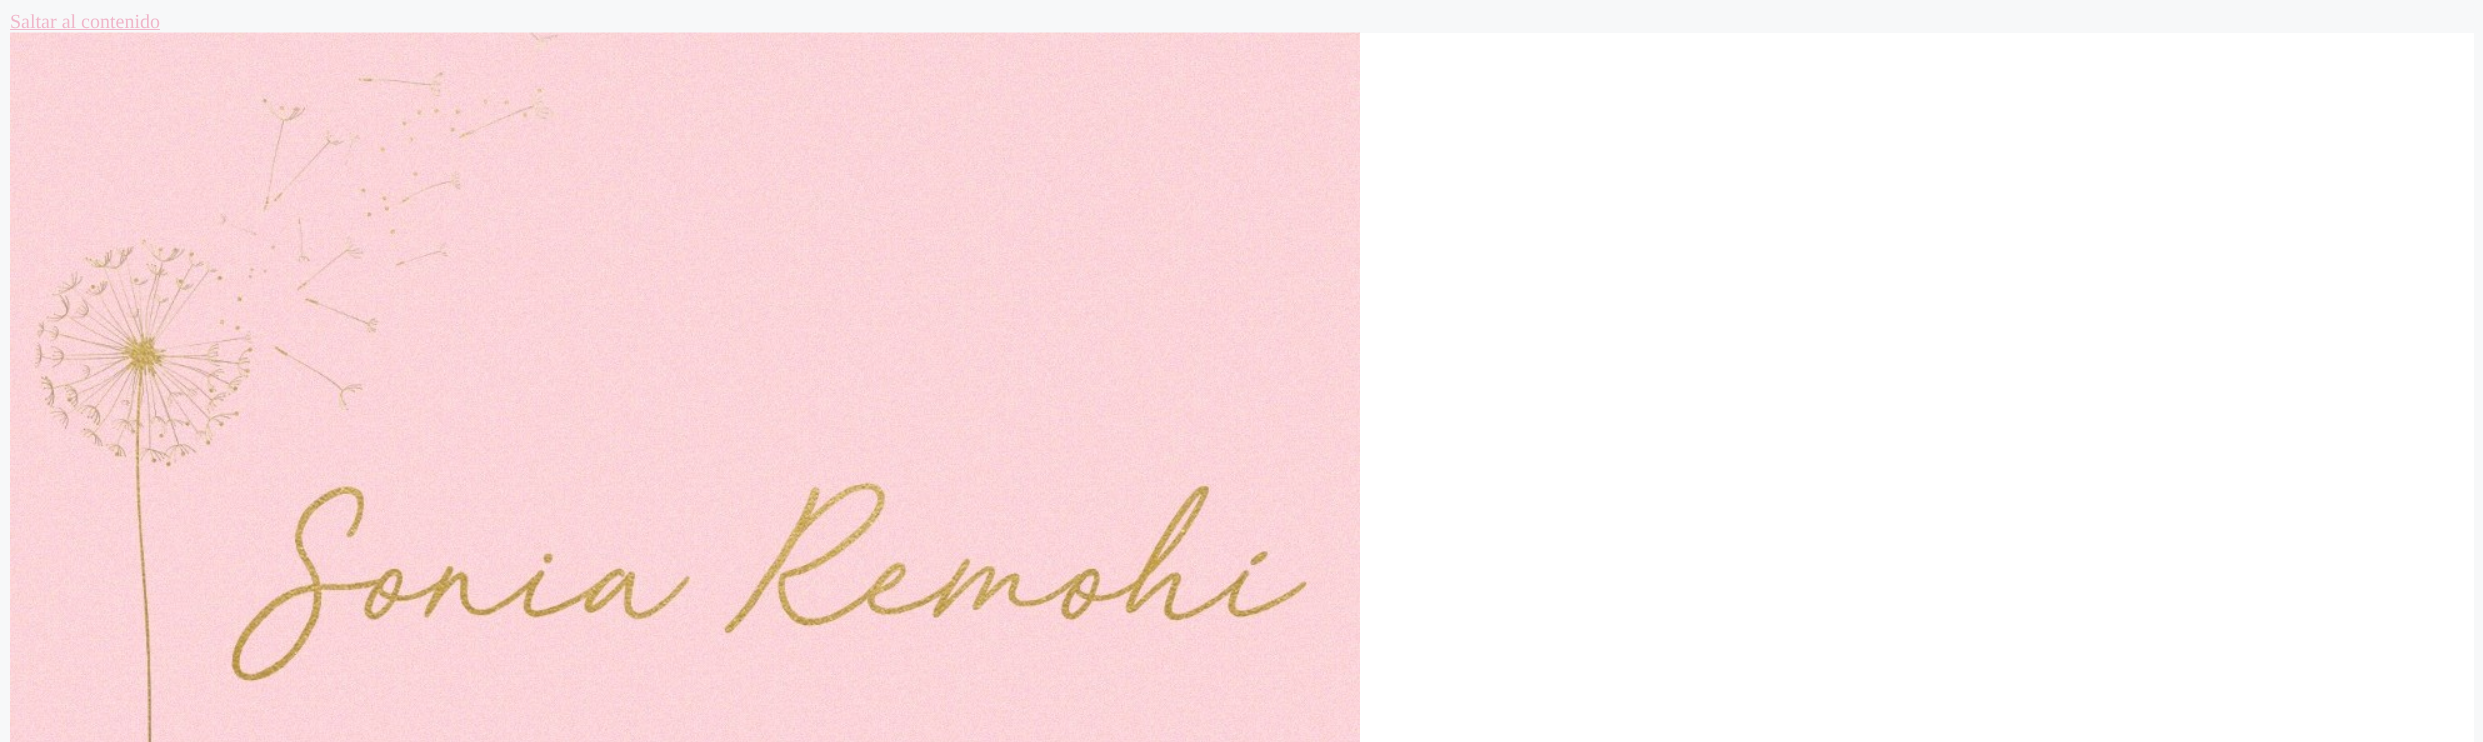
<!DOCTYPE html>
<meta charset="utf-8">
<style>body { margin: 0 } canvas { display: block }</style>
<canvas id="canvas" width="2483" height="742"></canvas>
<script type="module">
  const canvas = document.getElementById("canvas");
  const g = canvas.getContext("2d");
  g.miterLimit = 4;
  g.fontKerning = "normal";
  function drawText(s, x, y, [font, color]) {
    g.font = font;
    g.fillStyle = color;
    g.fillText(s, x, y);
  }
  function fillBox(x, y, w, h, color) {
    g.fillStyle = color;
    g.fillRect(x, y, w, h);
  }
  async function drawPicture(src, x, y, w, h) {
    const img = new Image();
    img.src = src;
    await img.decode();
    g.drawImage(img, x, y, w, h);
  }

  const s1 = ["20px Liberation Serif", "#F0B6CA"];

  fillBox(0, 0, 2483, 742, "#F7F8F9");
  drawText("Saltar al contenido", 10, 28, s1);
  fillBox(10, 29, 150, 1, "#F0B6CA");
  fillBox(1360, 33, 1114, 709, "#FFFFFF");
  await drawPicture("pic1.png", 10, 32, 1350, 710);
</script>
